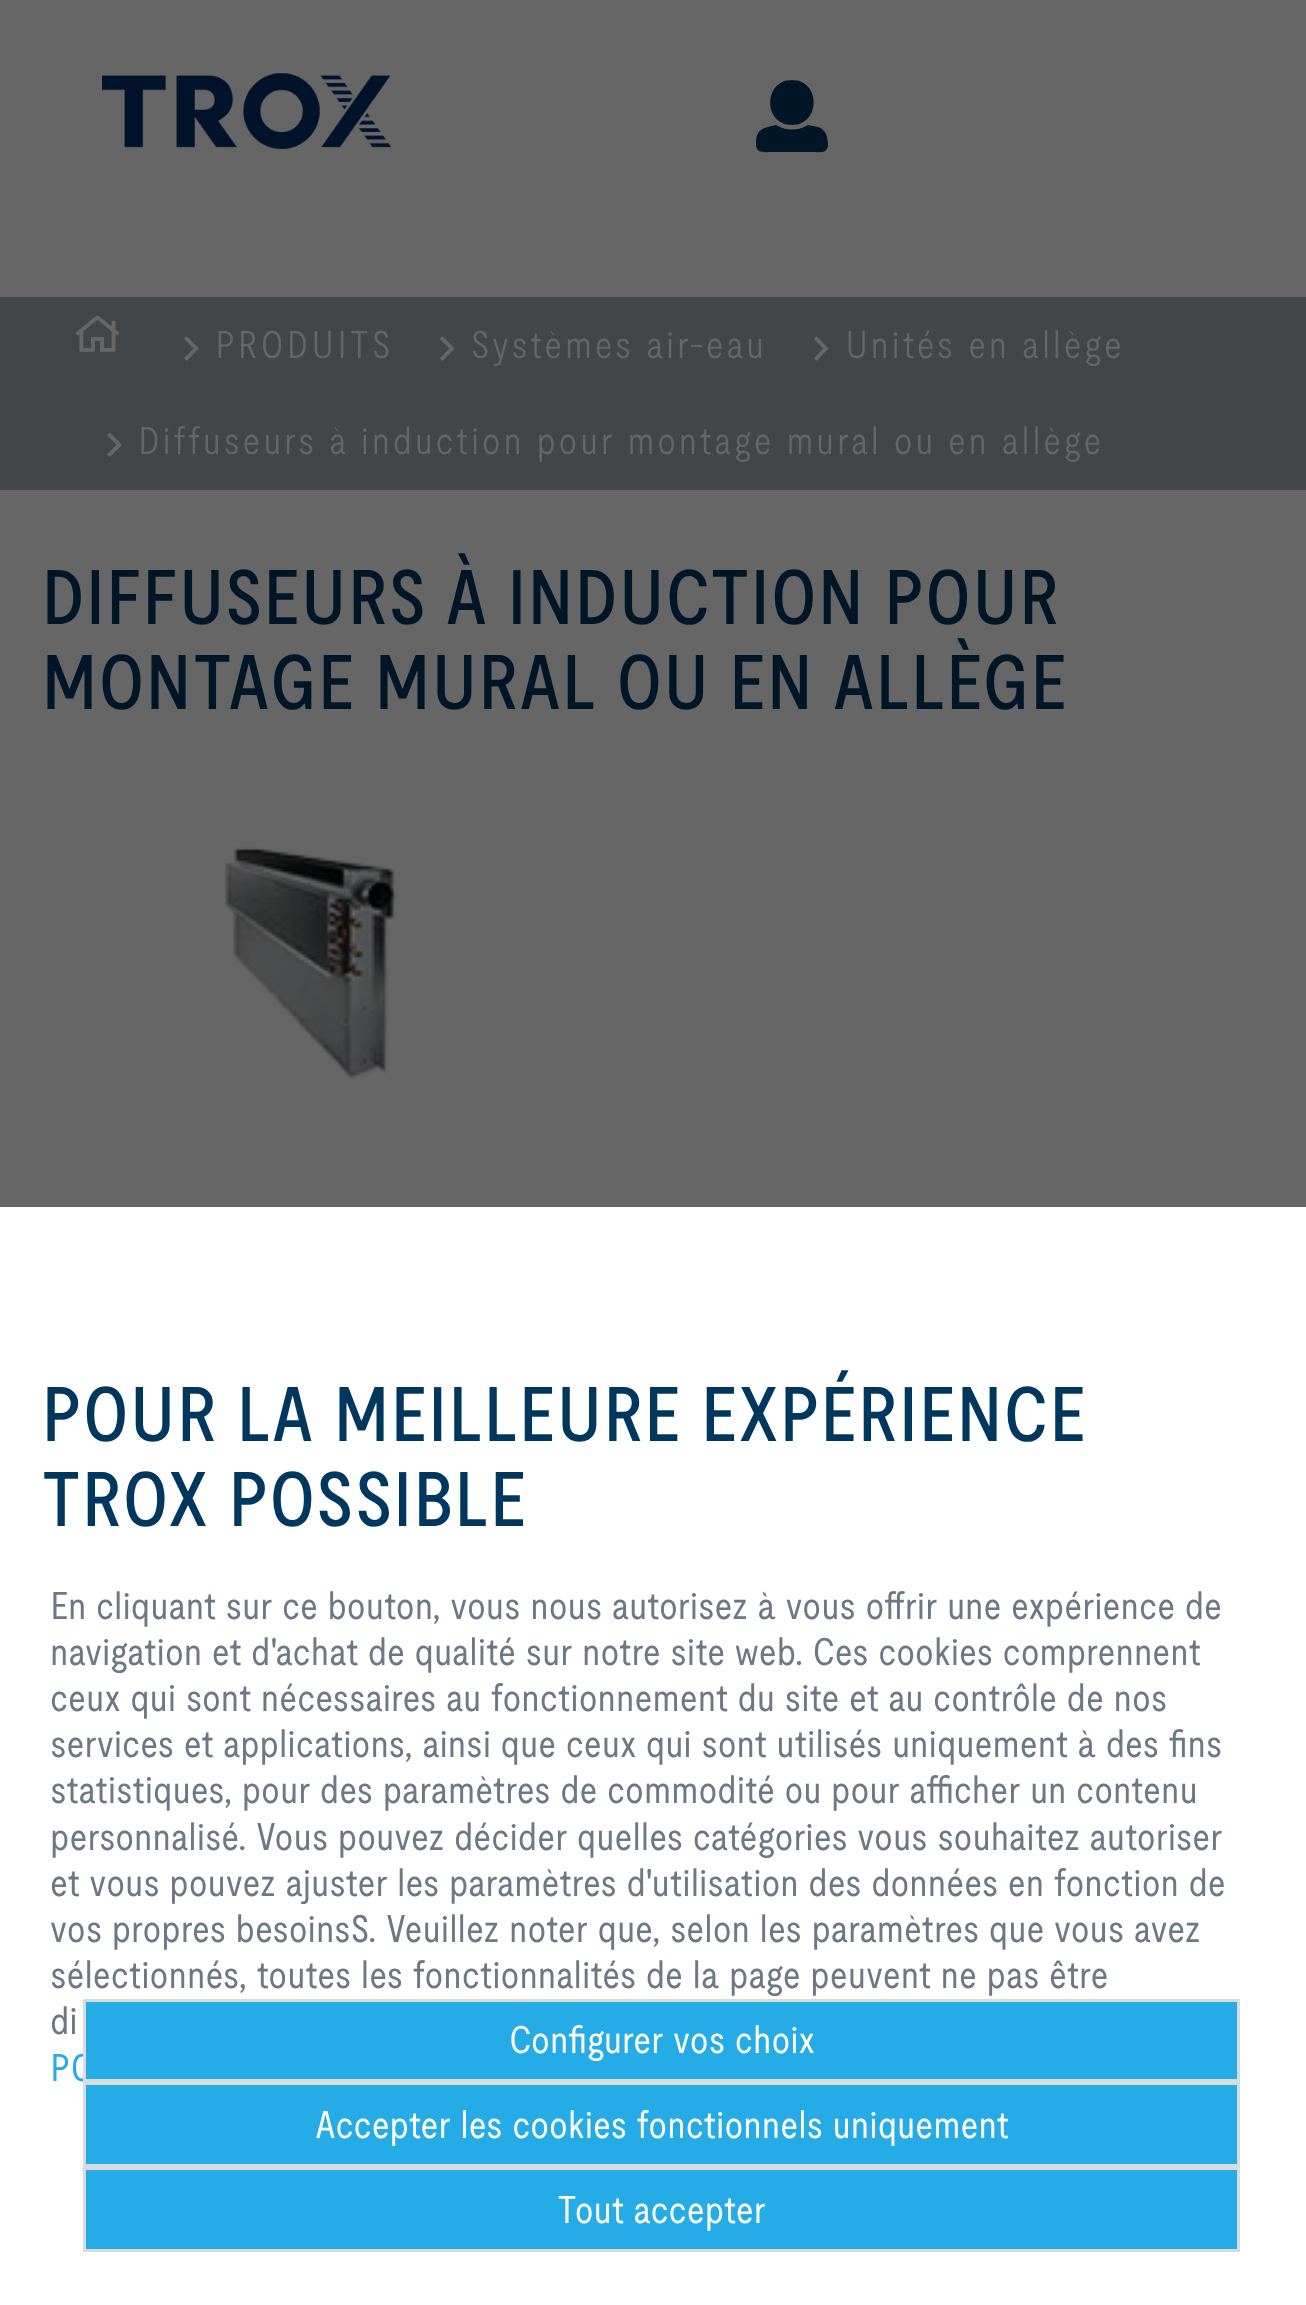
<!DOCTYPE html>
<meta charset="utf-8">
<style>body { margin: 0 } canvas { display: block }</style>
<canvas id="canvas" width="1306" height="2305"></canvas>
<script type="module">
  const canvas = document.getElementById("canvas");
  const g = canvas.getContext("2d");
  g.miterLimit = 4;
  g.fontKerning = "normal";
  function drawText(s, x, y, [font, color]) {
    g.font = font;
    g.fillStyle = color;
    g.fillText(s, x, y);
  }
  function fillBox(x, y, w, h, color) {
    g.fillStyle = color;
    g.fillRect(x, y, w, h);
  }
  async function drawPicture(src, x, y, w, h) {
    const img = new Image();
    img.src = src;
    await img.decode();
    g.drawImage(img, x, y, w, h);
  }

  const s1 = ["300 38.5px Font", "#666666"];
  const s2 = ["500 77px Font", "#001626"];
  const s3 = ["500 77px Font", "#00375F"];
  const s4 = ["38.5px Font", "#6E7883"];
  const s5 = ["38.5px Font", "#25ACE7"];
  const s6 = ["38.5px Font", "#FFFFFF"];

  fillBox(0, 0, 1306, 2305, "#666666");
  await drawPicture("pic1.png", 102, 73, 290, 77);
  g.fillStyle = "#001626";
  g.beginPath();
  g.moveTo(792, 80);
  g.bezierCurveTo(821, 80, 821, 125, 792, 125);
  g.bezierCurveTo(763, 125, 763, 80, 792, 80);
  g.closePath();
  g.moveTo(818, 127);
  g.lineTo(808, 125);
  g.bezierCurveTo(798, 131, 786, 131, 776, 125);
  g.bezierCurveTo(764, 128, 756, 128, 756, 144);
  g.bezierCurveTo(756, 154, 764, 152, 773, 152);
  g.lineTo(811, 152);
  g.bezierCurveTo(820, 152, 828, 154, 828, 144);
  g.lineTo(827, 137);
  g.bezierCurveTo(826, 132, 822, 128, 818, 127);
  g.closePath();
  g.fill();
  fillBox(0, 297, 1306, 193, "#434648");
  await drawPicture("pic2.png", 75, 315, 45, 37);
  await drawPicture("pic3.png", 184, 336, 15, 25);
  g.letterSpacing = "2.75px";
  drawText("PRODUITS", 215, 358, s1);
  await drawPicture("pic4.png", 440, 336, 15, 25);
  drawText("Systèmes air-eau", 471, 358, s1);
  await drawPicture("pic4.png", 814, 336, 15, 25);
  drawText("Unités en allège", 845, 358, s1);
  await drawPicture("pic5.png", 107, 432, 15, 25);
  g.wordSpacing = "-0.25px";
  drawText("Diffuseurs à induction pour montage mural ou en allège", 138, 454, s1);
  g.letterSpacing = "0px";
  g.wordSpacing = "0px";
  drawText("DIFFUSEURS À INDUCTION POUR", 41, 624, s2);
  drawText("MONTAGE MURAL OU EN ALLÈGE", 41, 709, s2);
  await drawPicture("pic6.png", 224, 846, 173, 233);
  fillBox(0, 1207, 1306, 1098, "#FFFFFF");
  drawText("POUR LA MEILLEURE EXPÉRIENCE", 41, 1441, s3);
  drawText("TROX POSSIBLE", 41, 1526, s3);
  drawText("En cliquant sur ce bouton, vous nous autorisez à vous offrir une expérience de", 50, 1619, s4);
  drawText("navigation et d'achat de qualité sur notre site web. Ces cookies comprennent", 50, 1665, s4);
  drawText("ceux qui sont nécessaires au fonctionnement du site et au contrôle de nos", 50, 1711, s4);
  drawText("services et applications, ainsi que ceux qui sont utilisés uniquement à des fins", 50, 1757, s4);
  drawText("statistiques, pour des paramètres de commodité ou pour afficher un contenu", 50, 1803, s4);
  drawText("personnalisé. Vous pouvez décider quelles catégories vous souhaitez autoriser", 50, 1850, s4);
  drawText("et vous pouvez ajuster les paramètres d'utilisation des données en fonction de", 50, 1896, s4);
  drawText("vos propres besoinsS. Veuillez noter que, selon les paramètres que vous avez", 50, 1942, s4);
  drawText("sélectionnés, toutes les fonctionnalités de la page peuvent ne pas être", 50, 1988, s4);
  drawText("di", 50, 2034, s4);
  drawText("PO", 50, 2081, s5);
  g.beginPath();
  g.rect(84.5, 2000.5, 1154, 80);
  g.fill();
  g.strokeStyle = "#D9DCDD";
  g.lineWidth = 3;
  g.stroke();
  drawText("Configurer vos choix", 509, 2053, s6);
  g.fillStyle = "#25ACE7";
  g.beginPath();
  g.rect(84.5, 2083.5, 1154, 82);
  g.fill();
  g.stroke();
  drawText("Accepter les cookies fonctionnels uniquement", 315, 2138, s6);
  g.fillStyle = "#25ACE7";
  g.beginPath();
  g.rect(84.5, 2168.5, 1154, 82);
  g.fill();
  g.stroke();
  drawText("Tout accepter", 557, 2223, s6);
</script>
